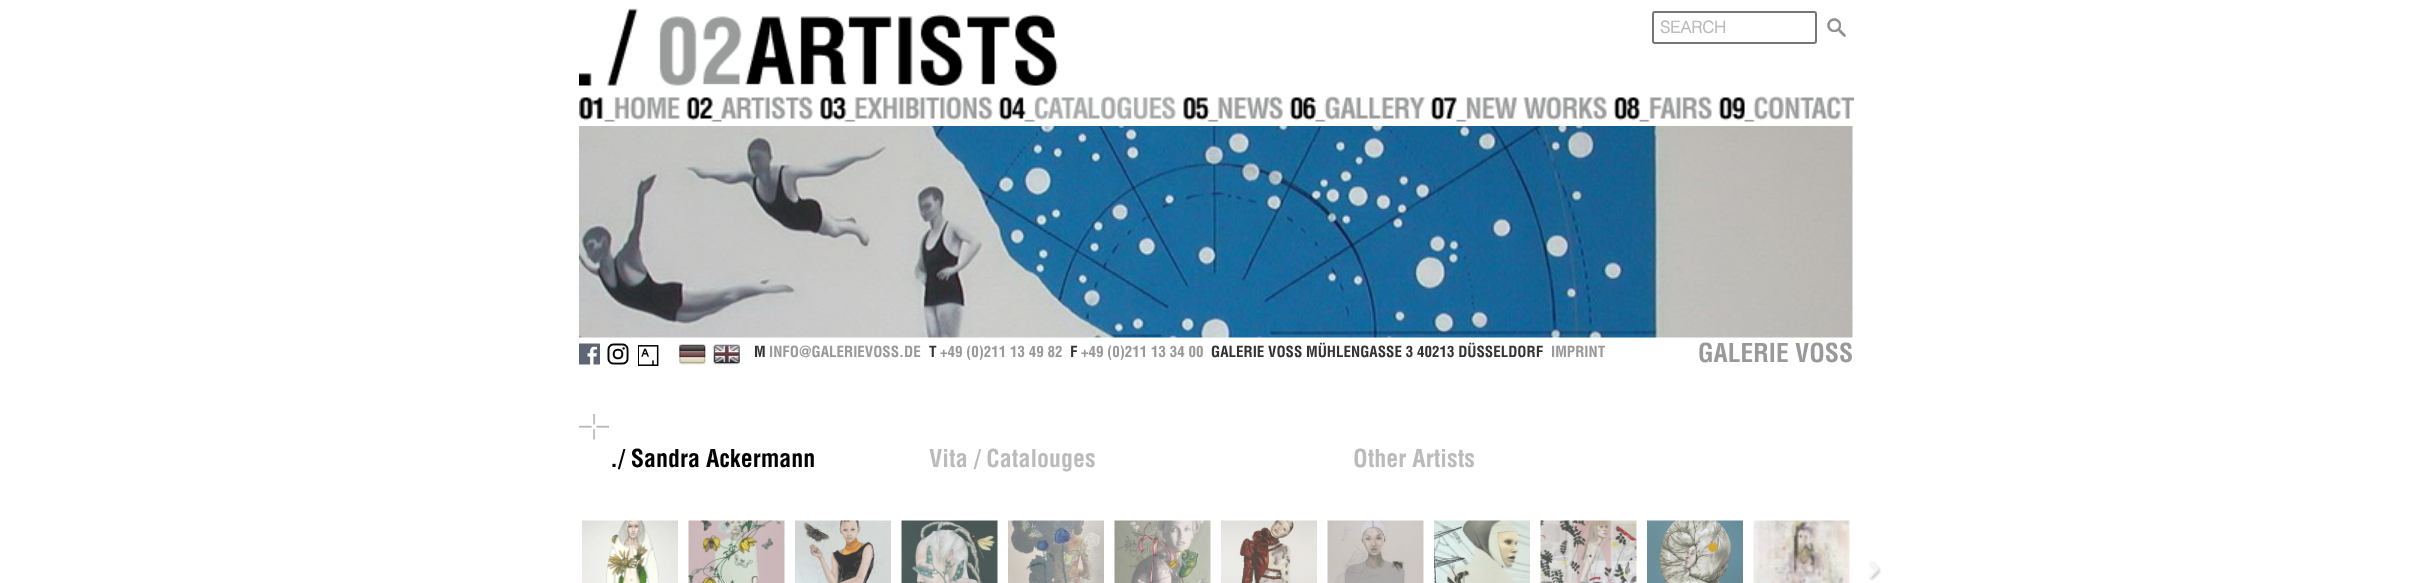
<!DOCTYPE html>
<meta charset="utf-8">
<style>body { margin: 0 } canvas { display: block }</style>
<canvas id="canvas" width="2431" height="583"></canvas>
<script type="module">
  const canvas = document.getElementById("canvas");
  const g = canvas.getContext("2d");
  g.miterLimit = 4;
  g.fontKerning = "normal";
  function drawText(s, x, y, [font, color]) {
    g.font = font;
    g.fillStyle = color;
    g.fillText(s, x, y);
  }
  function fillBox(x, y, w, h, color) {
    g.fillStyle = color;
    g.fillRect(x, y, w, h);
  }
  async function drawPicture(src, x, y, w, h) {
    const img = new Image();
    img.src = src;
    await img.decode();
    g.drawImage(img, x, y, w, h);
  }

  const s1 = ["bold 16.5px Helvetica", "#BBBBBB"];
  const s2 = ["bold 15px 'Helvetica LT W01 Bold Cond'", "#333333"];
  const s3 = ["bold 15px 'Helvetica LT W01 Bold Cond'", "#999999"];
  const s4 = ["bold 25.5px 'Helvetica LT W01 Bold Cond'", "#999999"];
  const s5 = ["bold 24px 'Helvetica LT W01 Bold Cond'", "#000000"];
  const s6 = ["bold 24px 'Helvetica LT W01 Bold Cond'", "#BBBBBB"];

  fillBox(0, 0, 2431, 583, "#FFFFFF");
  await drawPicture("pic1.png", 579, 8, 479, 78);
  g.beginPath();
  g.roundRect(1653, 12, 163, 31, 2);
  g.strokeStyle = "#767676";
  g.lineWidth = 2;
  g.stroke();
  drawText("SEARCH", 1660, 33, s1);
  await drawPicture("pic2.png", 1827, 18, 19, 19);
  await drawPicture("pic3.png", 579, 96, 101, 26);
  await drawPicture("pic4.png", 686, 96, 128, 26);
  await drawPicture("pic5.png", 820, 96, 174, 26);
  await drawPicture("pic6.png", 998, 96, 179, 26);
  await drawPicture("pic7.png", 1183, 96, 100, 26);
  await drawPicture("pic8.png", 1289, 96, 137, 26);
  await drawPicture("pic9.png", 1430, 96, 177, 26);
  await drawPicture("pic10.png", 1613, 96, 99, 26);
  await drawPicture("pic11.png", 1718, 96, 136, 26);
  await drawPicture("pic12.png", 579, 126, 1274, 212);
  await drawPicture("pic13.png", 579, 343, 21, 22);
  await drawPicture("pic14.png", 607, 343, 22, 22);
  await drawPicture("pic15.png", 638, 345, 21, 21);
  await drawPicture("pic16.png", 679, 344, 27, 21);
  await drawPicture("pic17.png", 713, 344, 27, 21);
  drawText("M", 754, 357, s2);
  drawText("INFO@GALERIEVOSS.DE", 769, 357, s3);
  drawText("T", 929, 357, s2);
  drawText("+49 (0)211 13 49 82", 940, 357, s3);
  drawText("F", 1070, 357, s2);
  drawText("+49 (0)211 13 34 00", 1081, 357, s3);
  drawText("GALERIE VOSS MÜHLENGASSE 3 40213 DÜSSELDORF", 1211, 357, s2);
  drawText("IMPRINT", 1551, 357, s3);
  drawText("GALERIE VOSS", 1698, 362, s4);
  await drawPicture("pic18.png", 579, 414, 30, 26);
  drawText("./ Sandra Ackermann", 610, 467, s5);
  drawText("Vita / Catalouges", 929, 467, s6);
  drawText("Other Artists", 1353, 467, s6);
  await drawPicture("pic19.png", 582, 520, 96, 63);
  await drawPicture("pic20.png", 688, 520, 97, 63);
  await drawPicture("pic21.png", 795, 520, 96, 63);
  await drawPicture("pic22.png", 901, 520, 97, 63);
  await drawPicture("pic23.png", 1008, 520, 96, 63);
  await drawPicture("pic24.png", 1114, 520, 97, 63);
  await drawPicture("pic25.png", 1221, 520, 96, 63);
  await drawPicture("pic26.png", 1327, 520, 97, 63);
  await drawPicture("pic27.png", 1434, 520, 96, 63);
  await drawPicture("pic28.png", 1540, 520, 97, 63);
  await drawPicture("pic29.png", 1647, 520, 96, 63);
  await drawPicture("pic30.png", 1753, 520, 97, 63);
  await drawPicture("pic31.png", 1868, 561, 13, 20);
</script>
